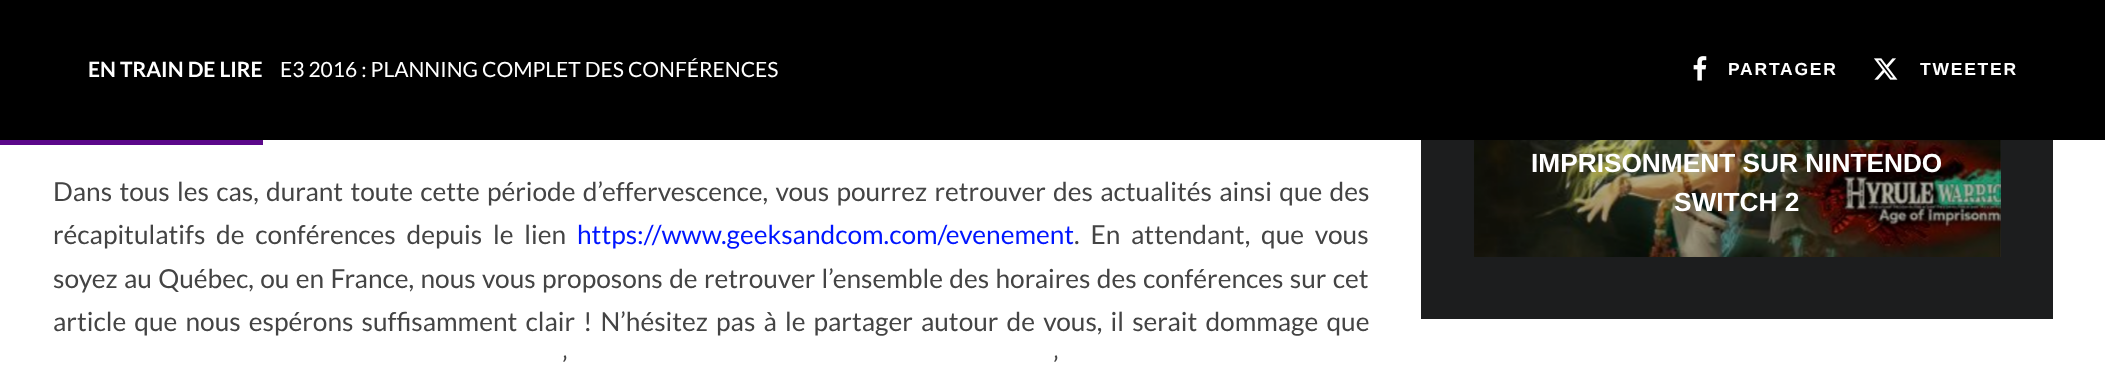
<!DOCTYPE html>
<meta charset="utf-8">
<style>body { margin: 0 } canvas { display: block }</style>
<canvas id="canvas" width="2105" height="368"></canvas>
<script type="module">
  const canvas = document.getElementById("canvas");
  const g = canvas.getContext("2d");
  g.miterLimit = 4;
  g.fontKerning = "normal";
  function drawText(s, x, y, [font, color]) {
    g.font = font;
    g.fillStyle = color;
    g.fillText(s, x, y);
  }
  function fillBox(x, y, w, h, color) {
    g.fillStyle = color;
    g.fillRect(x, y, w, h);
  }
  async function drawPicture(src, x, y, w, h) {
    const img = new Image();
    img.src = src;
    await img.decode();
    g.drawImage(img, x, y, w, h);
  }

  const s1 = ["bold 21px Lato", "#FFFFFF"];
  const s2 = ["21px Lato", "#FFFFFF"];
  const s3 = ["bold 17.5px Liberation Sans", "#FFFFFF"];
  const s4 = ["26.25px Lato", "#444444"];
  const s5 = ["26.25px Lato", "#0015FF"];
  const s6 = ["bold 26.25px Liberation Sans", "#FFFFFF"];

  fillBox(0, 0, 2105, 368, "#FFFFFF");
  fillBox(0, 0, 2105, 140, "#000000");
  drawText("EN TRAIN DE LIRE", 88, 77, s1);
  drawText("E3 2016 : PLANNING COMPLET DES CONFÉRENCES", 280, 77, s2);
  await drawPicture("pic1.png", 1693, 56, 14, 25);
  g.letterSpacing = "1.75px";
  drawText("PARTAGER", 1728, 75, s3);
  await drawPicture("pic2.png", 1874, 58, 24, 22);
  drawText("TWEETER", 1920, 75, s3);
  fillBox(0, 140, 263, 5, "#5B088A");
  g.letterSpacing = "0px";
  g.wordSpacing = "2.25px";
  drawText("Dans tous les cas, durant toute cette période d’effervescence, vous pourrez retrouver des actualités ainsi que des", 53, 201, s4);
  g.wordSpacing = "5.75px";
  drawText("récapitulatifs de conférences depuis le lien", 53, 244, s4);
  g.wordSpacing = "0px";
  drawText("https://www.geeksandcom.com/evenement", 577, 244, s5);
  g.wordSpacing = "5.75px";
  drawText(". En attendant, que vous", 1074, 244, s4);
  g.wordSpacing = "1.3px";
  drawText("soyez au Québec, ou en France, nous vous proposons de retrouver l’ensemble des horaires des conférences sur cet", 53, 288, s4);
  g.wordSpacing = "3.1px";
  drawText("article que nous espérons suffisamment clair ! N’hésitez pas à le partager autour de vous, il serait dommage que", 53, 331, s4);
  g.wordSpacing = "0px";
  drawText("’", 562, 375, s4);
  drawText("’", 1053, 375, s4);
  fillBox(1421, 140, 632, 179, "#1C1D1E");
  fillBox(1474, 140, 526, 117, "#000000");
  await drawPicture("pic3.png", 1474, 140, 527, 117);
  drawText("IMPRISONMENT SUR NINTENDO", 1531, 172, s6);
  drawText("SWITCH 2", 1674, 211, s6);
</script>
